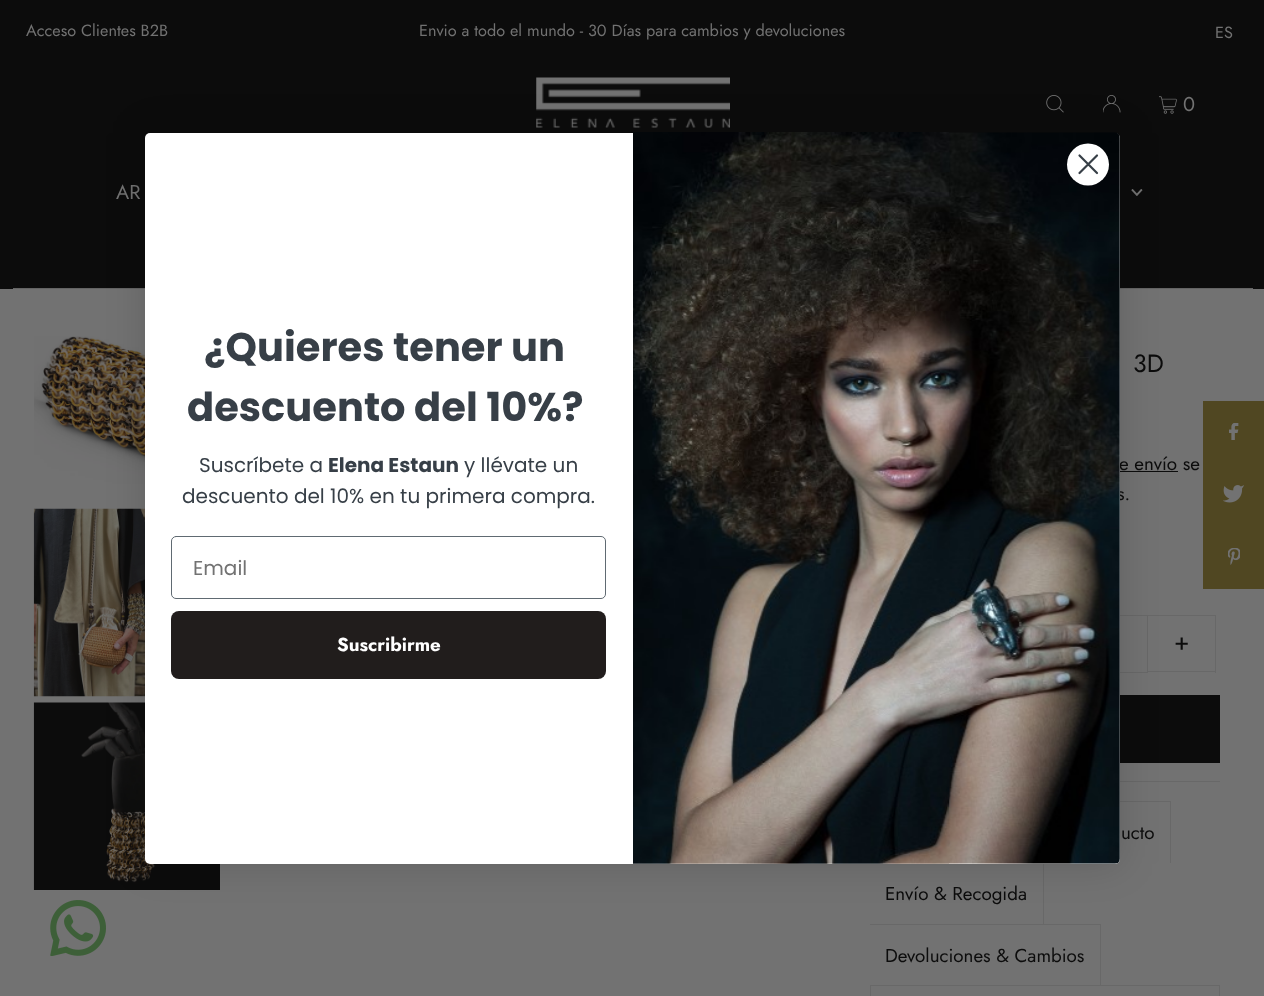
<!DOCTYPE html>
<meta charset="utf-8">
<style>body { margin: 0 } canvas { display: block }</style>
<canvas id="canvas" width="1264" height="996"></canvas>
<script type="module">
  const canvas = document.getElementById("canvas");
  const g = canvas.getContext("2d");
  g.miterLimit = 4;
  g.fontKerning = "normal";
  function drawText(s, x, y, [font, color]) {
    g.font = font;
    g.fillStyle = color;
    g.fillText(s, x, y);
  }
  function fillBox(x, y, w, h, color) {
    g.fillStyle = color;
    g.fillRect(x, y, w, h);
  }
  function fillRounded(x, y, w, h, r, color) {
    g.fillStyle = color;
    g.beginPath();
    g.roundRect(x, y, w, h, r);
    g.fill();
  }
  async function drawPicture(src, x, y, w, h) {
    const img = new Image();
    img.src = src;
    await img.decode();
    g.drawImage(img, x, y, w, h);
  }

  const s1 = ["16.25px Jost", "#727272"];
  const s2 = ["20px Jost", "#727272"];
  const s3 = ["25px Jost", "#0C0C0C"];
  const s4 = ["18.75px Jost", "#0C0C0C"];
  const s5 = ["bold 40px Poppins", "#373F47"];
  const s6 = ["20px Poppins", "#373F47"];
  const s7 = ["bold 20px Poppins", "#373F47"];
  const s8 = ["20px Poppins", "#727272"];
  const s9 = ["bold 18.75px Jost", "#FFFFFF"];

  fillBox(0, 0, 1264, 996, "#727272");
  fillBox(0, 0, 1264, 289, "#0C0C0C");
  drawText("Acceso Clientes B2B", 26, 36, s1);
  drawText("Envio a todo el mundo - 30 Días para cambios y devoluciones", 419, 36, s1);
  drawText("ES", 1215, 38, s1);
  fillBox(13, 288, 1240, 1, "#646464");
  await drawPicture("pic1.png", 536, 77, 194, 51);
  await drawPicture("pic2.png", 1046, 95, 18, 18);
  await drawPicture("pic3.png", 1103, 95, 18, 18);
  await drawPicture("pic4.png", 1159, 96, 18, 18);
  drawText("0", 1183, 111, s2);
  drawText("AR", 116, 199, s2);
  await drawPicture("pic5.png", 1131, 189, 12, 7);
  await drawPicture("pic6.png", 50, 900, 56, 56);
  await drawPicture("pic7.png", 34, 336, 111, 148);
  await drawPicture("pic8.png", 33, 508, 112, 189);
  await drawPicture("pic9.png", 33, 702, 187, 188);
  drawText("3D", 1133, 372, s3);
  drawText("e envío se", 1119, 470, s4);
  fillBox(1120, 471, 58, 1, "#0C0C0C");
  drawText("s.", 1117, 500, s4);
  fillBox(1120, 781, 100, 1, "#686868");
  g.strokeStyle = "#686868";
  g.strokeRect(1058.5, 615.5, 89, 57);
  fillBox(1148, 615, 68, 1, "#686868");
  fillBox(1215, 615, 1, 58, "#686868");
  fillBox(1148, 671, 68, 1, "#686868");
  drawText("+", 1174, 650, s3);
  fillBox(1120, 695, 100, 68, "#0C0C0C");
  fillBox(1120, 801, 51, 1, "#686868");
  fillBox(1170, 801, 1, 62, "#686868");
  drawText("ucto", 1121, 839, s4);
  fillBox(1043, 863, 1, 61, "#686868");
  drawText("Envío & Recogida", 885, 900, s4);
  fillBox(870, 924, 231, 1, "#686868");
  fillBox(1100, 924, 1, 61, "#686868");
  drawText("Devoluciones & Cambios", 885, 962, s4);
  g.strokeRect(870.5, 985.5, 349, 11);
  fillBox(1203, 401, 61, 188, "#504722");
  await drawPicture("pic10.png", 1229, 423, 10, 17);
  await drawPicture("pic11.png", 1223, 485, 21, 18);
  await drawPicture("pic12.png", 1228, 548, 12, 17);
  g.fillStyle = "rgba(0, 0, 0, 0.15)";
  g.filter = "blur(19px)";
  g.beginPath();
  g.roundRect(145, 133, 975, 731, 5);
  g.fill();
  g.filter = "none";
  fillRounded(145, 133, 975, 731, 5, "#FFFFFF");
  await drawPicture("pic13.png", 633, 132, 487, 732);
  g.beginPath();
  g.arc(1088, 164.5, 21, 0, Math.PI * 2);
  g.fill();
  g.beginPath();
  g.moveTo(1079.5, 155.5);
  g.lineTo(1097, 173);
  g.moveTo(1079.5, 173);
  g.lineTo(1097, 155.5);
  g.closePath();
  g.strokeStyle = "#373F47";
  g.lineWidth = 2.2;
  g.lineCap = "round";
  g.lineJoin = "round";
  g.stroke();
  drawText("¿Quieres tener un", 204, 361, s5);
  drawText("descuento del 10%?", 187, 421, s5);
  drawText("Suscríbete a", 199, 472, s6);
  drawText("Elena Estaun", 328, 472, s7);
  drawText("y llévate un", 464, 472, s6);
  drawText("descuento del 10% en tu primera compra.", 182, 503, s6);
  g.beginPath();
  g.roundRect(171.5, 536.5, 434, 62, 4.5);
  g.strokeStyle = "#606A72";
  g.lineWidth = 1;
  g.lineJoin = "miter";
  g.stroke();
  drawText("Email", 193, 575, s8);
  fillRounded(171, 611, 435, 68, 8, "#211D1C");
  drawText("Suscribirme", 337, 651, s9);
</script>
